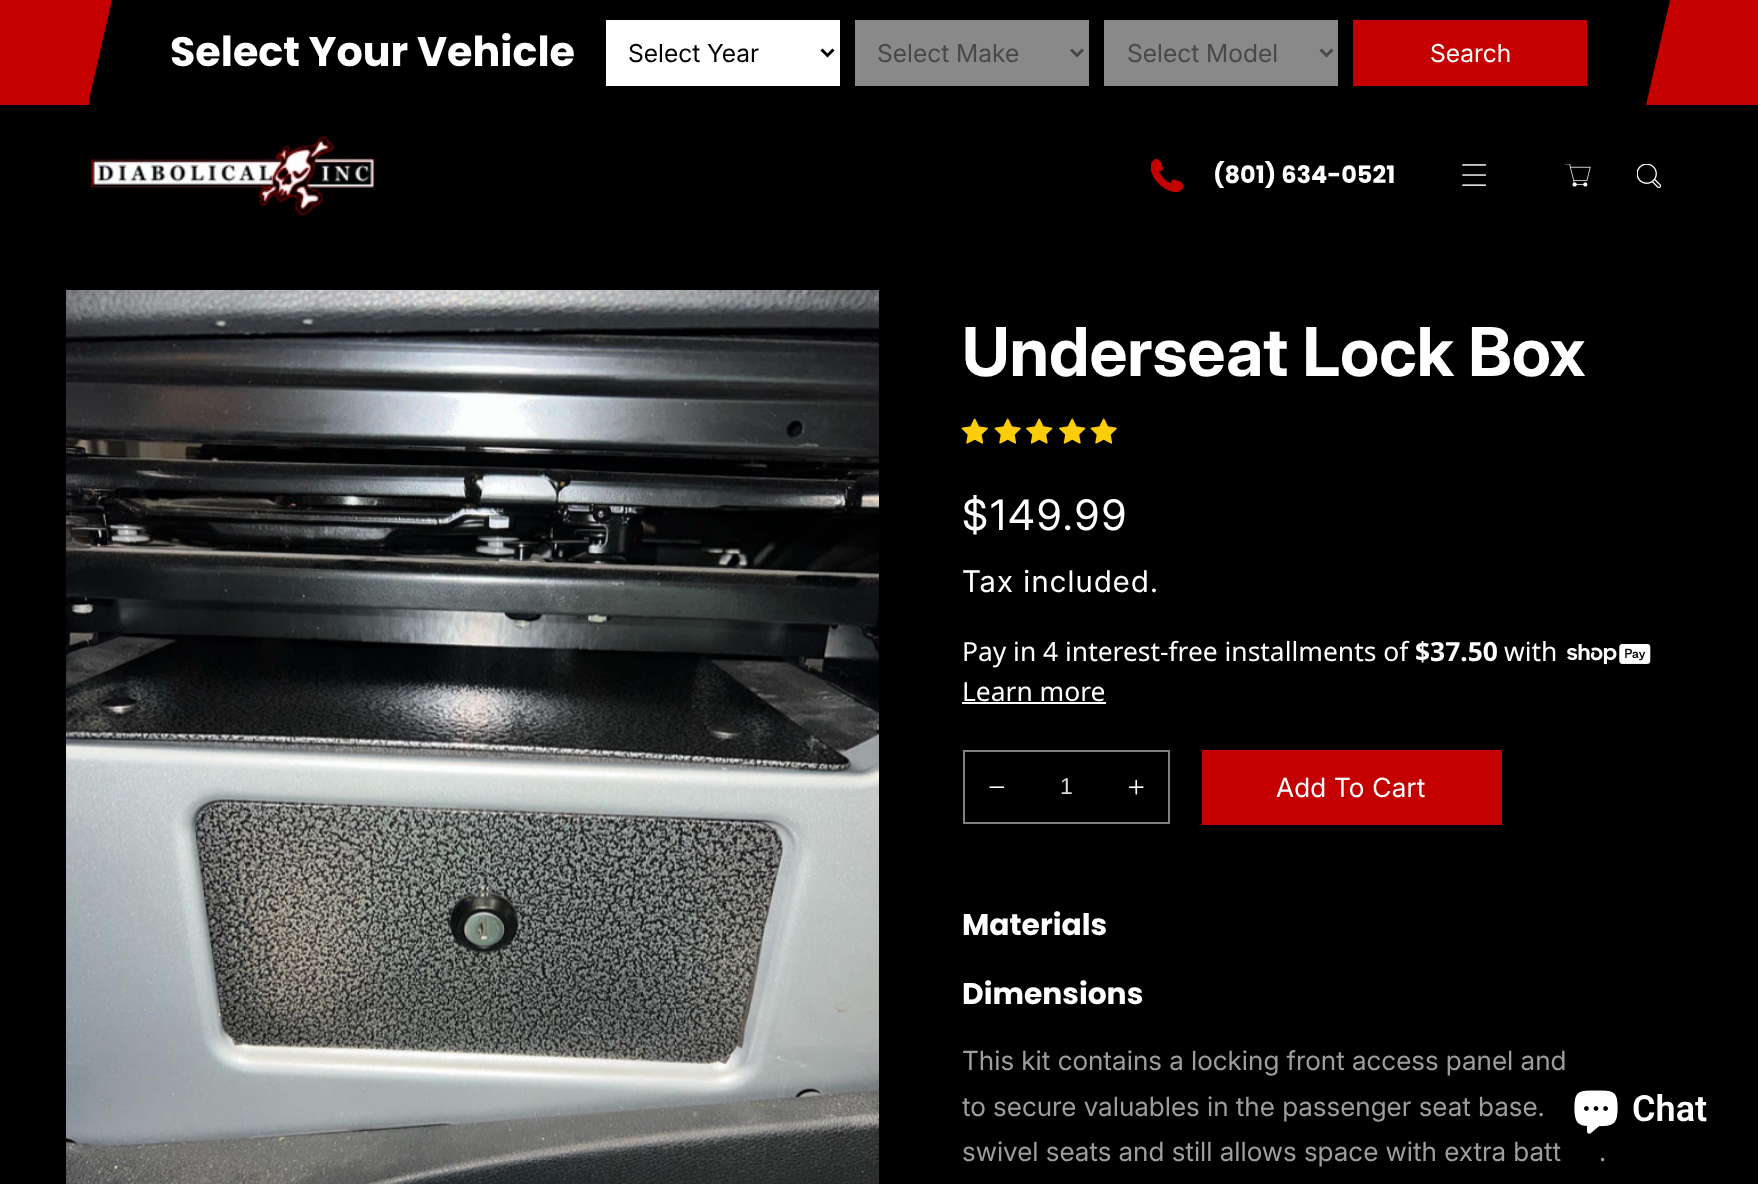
<!DOCTYPE html>
<meta charset="utf-8">
<style>body { margin: 0 } canvas { display: block }</style>
<canvas id="canvas" width="1758" height="1184"></canvas>
<script type="module">
  const canvas = document.getElementById("canvas");
  const g = canvas.getContext("2d");
  g.miterLimit = 4;
  g.fontKerning = "normal";
  function drawText(s, x, y, [font, color]) {
    g.font = font;
    g.fillStyle = color;
    g.fillText(s, x, y);
  }
  function fillBox(x, y, w, h, color) {
    g.fillStyle = color;
    g.fillRect(x, y, w, h);
  }
  function fillRounded(x, y, w, h, r, color) {
    g.fillStyle = color;
    g.beginPath();
    g.roundRect(x, y, w, h, r);
    g.fill();
  }
  async function drawPicture(src, x, y, w, h) {
    const img = new Image();
    img.src = src;
    await img.decode();
    g.drawImage(img, x, y, w, h);
  }

  const s1 = ["bold 41.25px Poppins", "#FFFFFF"];
  const s2 = ["24.75px Inter", "#000000"];
  const s3 = ["24.75px Inter", "#484848"];
  const s4 = ["24.75px Inter", "#FFFFFF"];
  const s5 = ["bold 24px Poppins", "#FFFFFF"];
  const s6 = ["bold 67.5px Inter", "#FFFFFF"];
  const s7 = ["42px 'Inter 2'", "#FFFFFF"];
  const s8 = ["29.75px 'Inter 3'", "#FFFFFF"];
  const s9 = ["26.4px Noto Sans", "#FFFFFF"];
  const s10 = ["bold 26.4px Noto Sans", "#FFFFFF"];
  const s11 = ["23px Liberation Sans", "#D9D9D9"];
  const s12 = ["26.4px 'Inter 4'", "#FFFFFF"];
  const s13 = ["bold 29.75px Poppins", "#FFFFFF"];
  const s14 = ["26.4px 'Inter 4'", "#9D9D9D"];
  const s15 = ["600 36px Roboto", "#FFFFFF"];

  fillBox(0, 0, 1758, 1184, "#000000");
  fillBox(0, 0, 1758, 105, "#C40000");
  g.fillStyle = "#000000";
  g.beginPath();
  g.moveTo(112, 0);
  g.lineTo(89, 100);
  g.lineTo(89, 105);
  g.lineTo(1646, 105);
  g.lineTo(1670, 0);
  g.closePath();
  g.fill();
  drawText("Select Your Vehicle", 170, 66, s1);
  fillBox(606, 20, 234, 66, "#FFFFFF");
  g.beginPath();
  g.moveTo(821.5, 49.5);
  g.lineTo(827.5, 55.5);
  g.lineTo(833.5, 49.5);
  g.strokeStyle = "#000000";
  g.lineWidth = 3;
  g.stroke();
  drawText("Select Year", 628, 62, s2);
  fillBox(855, 20, 234, 66, "#898989");
  g.beginPath();
  g.moveTo(1071, 49.5);
  g.lineTo(1077, 55.5);
  g.lineTo(1083, 49.5);
  g.strokeStyle = "#484848";
  g.stroke();
  drawText("Select Make", 877, 62, s3);
  fillBox(1104, 20, 234, 66, "#898989");
  g.beginPath();
  g.moveTo(1320.5, 49.5);
  g.lineTo(1326.5, 55.5);
  g.lineTo(1332.5, 49.5);
  g.stroke();
  drawText("Select Model", 1127, 62, s3);
  fillBox(1353, 20, 234, 66, "#C40000");
  drawText("Search", 1430, 62, s4);
  await drawPicture("pic1.png", 90, 136, 285, 79);
  await drawPicture("pic2.png", 1151, 159, 33, 33);
  drawText("(801) 634-0521", 1213, 183, s5);
  await drawPicture("pic3.png", 1462, 164, 25, 22);
  await drawPicture("pic4.png", 1565, 164, 26, 23);
  await drawPicture("pic5.png", 1637, 164, 25, 24);
  await drawPicture("pic6.png", 66, 290, 813, 894);
  drawText("Underseat Lock Box", 962, 376, s6);
  await drawPicture("pic7.png", 961, 418, 27, 26);
  await drawPicture("pic7.png", 994, 418, 27, 26);
  await drawPicture("pic8.png", 1026, 418, 27, 26);
  await drawPicture("pic8.png", 1059, 418, 27, 26);
  await drawPicture("pic7.png", 1090, 418, 27, 26);
  g.letterSpacing = "2.25px";
  drawText("$149.99", 962, 530, s7);
  g.letterSpacing = "1.2px";
  drawText("Tax included.", 962, 592, s8);
  g.letterSpacing = "0px";
  drawText("Pay in 4 interest-free installments of", 962, 661, s9);
  drawText("$37.50", 1415, 661, s10);
  drawText("with", 1504, 661, s9);
  await drawPicture("pic9.png", 1567, 644, 84, 21);
  drawText("Learn more", 962, 701, s9);
  fillBox(962, 702, 144, 2, "#FFFFFF");
  await drawPicture("pic10.png", 989, 786, 16, 2);
  await drawPicture("pic11.png", 1128, 779, 16, 16);
  g.strokeStyle = "#808080";
  g.lineWidth = 2;
  g.strokeRect(964, 751, 205, 72);
  drawText("1", 1060, 794, s11);
  fillBox(1202, 750, 300, 75, "#C40000");
  g.letterSpacing = "0.25px";
  drawText("Add To Cart", 1276, 797, s12);
  g.letterSpacing = "0px";
  drawText("Materials", 962, 935, s13);
  drawText("Dimensions", 962, 1004, s13);
  drawText("This kit contains a locking front access panel and", 962, 1070, s14);
  drawText("to secure valuables in the passenger seat base.", 962, 1116, s14);
  drawText("swivel seats and still allows space with extra batt", 962, 1161, s14);
  drawText(".", 1599, 1161, s14);
  fillRounded(1556, 1064, 169, 90, 24, "#000000");
  await drawPicture("pic12.png", 1574, 1090, 44, 44);
  drawText("Chat", 1632, 1121, s15);
</script>
